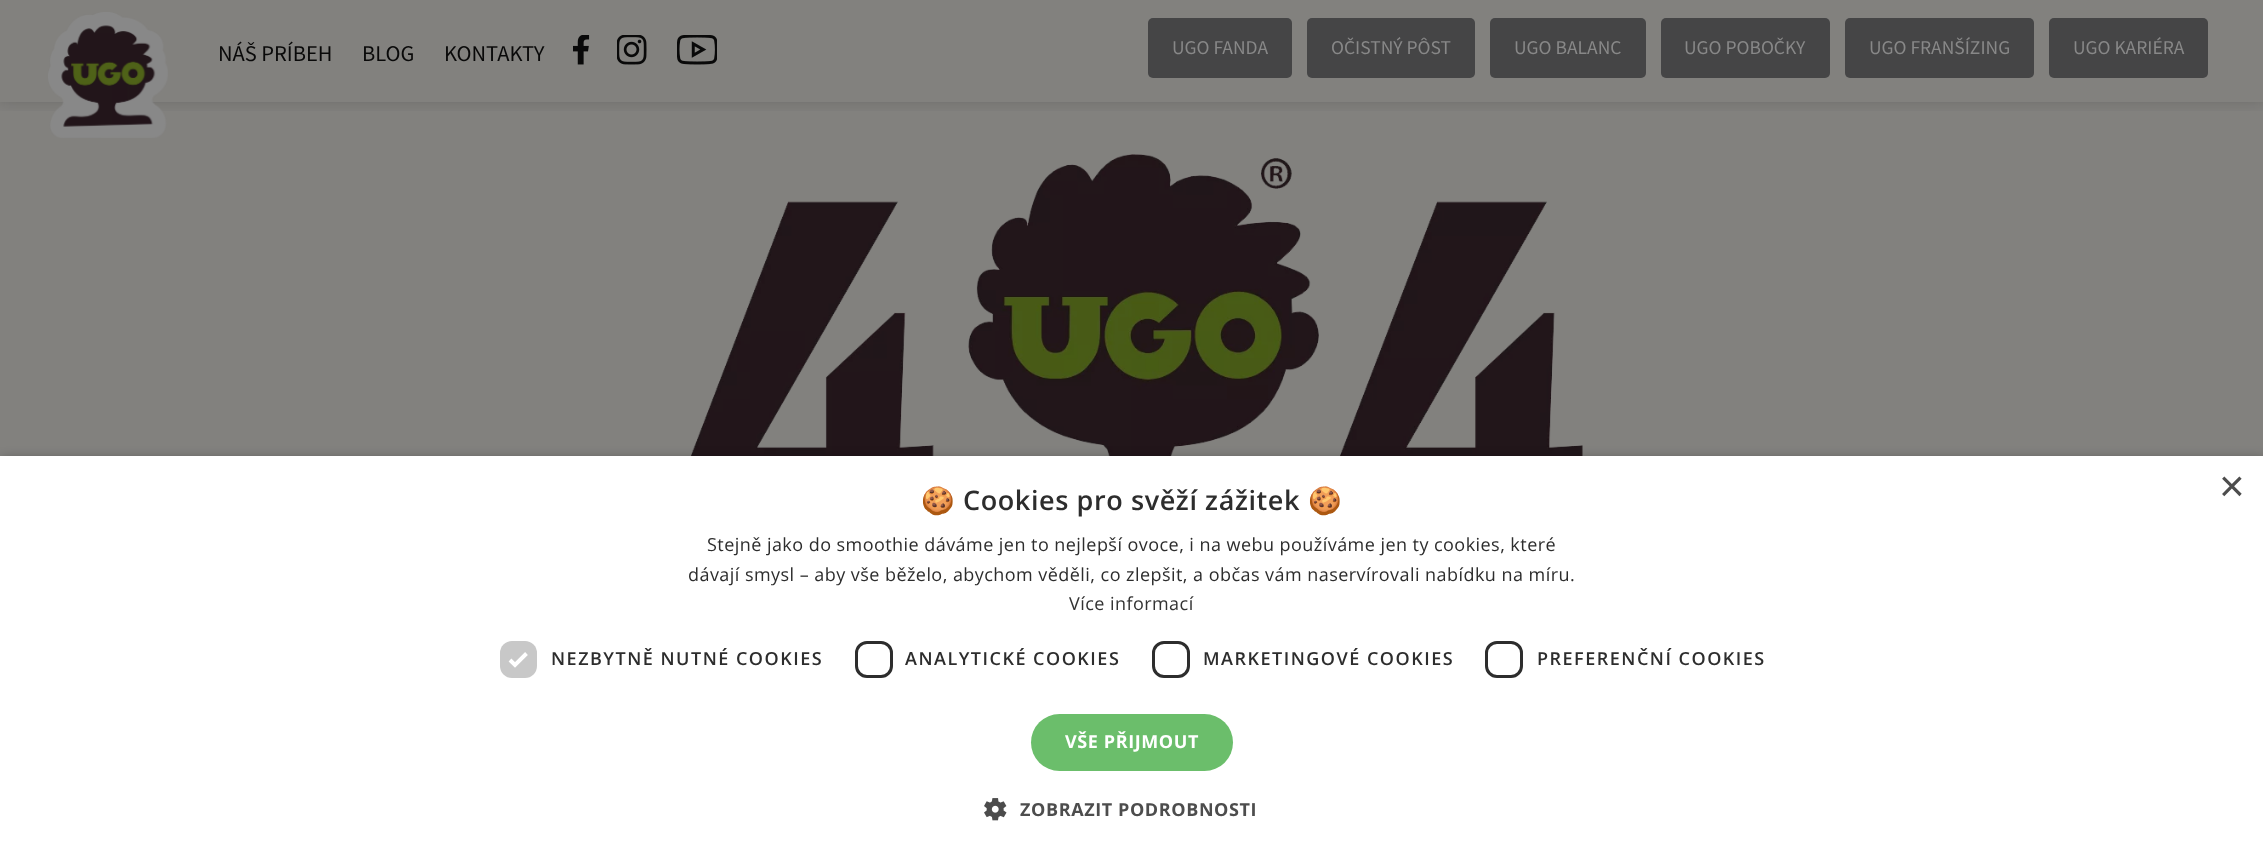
<!DOCTYPE html>
<meta charset="utf-8">
<style>body { margin: 0 } canvas { display: block }</style>
<canvas id="canvas" width="2263" height="859"></canvas>
<script type="module">
  const canvas = document.getElementById("canvas");
  const g = canvas.getContext("2d");
  g.miterLimit = 4;
  g.fontKerning = "normal";
  function drawText(s, x, y, [font, color]) {
    g.font = font;
    g.fillStyle = color;
    g.fillText(s, x, y);
  }
  function fillBox(x, y, w, h, color) {
    g.fillStyle = color;
    g.fillRect(x, y, w, h);
  }
  function fillRounded(x, y, w, h, r, color) {
    g.fillStyle = color;
    g.beginPath();
    g.roundRect(x, y, w, h, r);
    g.fill();
  }
  async function drawPicture(src, x, y, w, h) {
    const img = new Image();
    img.src = src;
    await img.decode();
    g.drawImage(img, x, y, w, h);
  }

  const s1 = ["22.5px Source Sans Pro", "#090909"];
  const s2 = ["19.5px Source Sans Pro", "#888888"];
  const s3 = ["bold 27px Noto Color Emoji", "#2D2D2D"];
  const s4 = ["600 27px Open Sans", "#2D2D2D"];
  const s5 = ["44px Liberation Sans", "#4D4D4D"];
  const s6 = ["18px Open Sans", "#2D2D2D"];
  const s7 = ["18px Open Sans", "#333333"];
  const s8 = ["600 18px Open Sans", "#2D2D2D"];
  const s9 = ["bold 18px Open Sans", "#FFFFFF"];
  const s10 = ["bold 18px Open Sans", "#4D4D4D"];

  fillBox(0, 0, 2263, 859, "#82817E");
  g.save();
  g.beginPath();
  g.rect(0, 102, 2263, 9);
  g.clip();
  g.fillStyle = "rgba(9, 9, 9, 0.18)";
  g.filter = "blur(7.5px)";
  g.beginPath();
  g.rect(0, 0, 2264, 102);
  g.fill();
  g.filter = "none";
  g.restore();
  await drawPicture("pic1.png", 48, 12, 120, 126);
  drawText("NÁŠ PRÍBEH", 218, 61, s1);
  drawText("BLOG", 362, 61, s1);
  drawText("KONTAKTY", 444, 61, s1);
  await drawPicture("pic2.png", 573, 35, 17, 30);
  await drawPicture("pic3.png", 617, 35, 30, 30);
  await drawPicture("pic4.png", 677, 35, 40, 30);
  fillRounded(1148, 18, 144, 60, 5, "#454546");
  drawText("UGO FANDA", 1172, 54, s2);
  fillRounded(1307, 18, 168, 60, 5, "#454546");
  drawText("OČISTNÝ PÔST", 1331, 54, s2);
  fillRounded(1490, 18, 156, 60, 5, "#454546");
  drawText("UGO BALANC", 1514, 54, s2);
  fillRounded(1661, 18, 169, 60, 5, "#454546");
  drawText("UGO POBOČKY", 1684, 54, s2);
  fillRounded(1845, 18, 189, 60, 5, "#454546");
  drawText("UGO FRANŠÍZING", 1869, 54, s2);
  fillRounded(2049, 18, 159, 60, 5, "#454546");
  drawText("UGO KARIÉRA", 2073, 54, s2);
  await drawPicture("pic5.png", 690, 154, 893, 302);
  g.fillStyle = "rgba(0, 0, 0, 0.35)";
  g.filter = "blur(6px)";
  g.beginPath();
  g.rect(2, 459, 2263, 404);
  g.fill();
  g.filter = "none";
  fillBox(0, 456, 2263, 403, "#FFFFFF");
  g.letterSpacing = "0.6px";
  drawText("🍪", 921, 510, s3);
  drawText("Cookies pro svěží zážitek", 963, 510, s4);
  drawText("🍪", 1308, 510, s3);
  g.letterSpacing = "0px";
  drawText("×", 2219, 501, s5);
  g.letterSpacing = "0.45px";
  drawText("Stejně jako do smoothie dáváme jen to nejlepší ovoce, i na webu používáme jen ty cookies, které", 707, 551, s6);
  drawText("dávají smysl – aby vše běželo, abychom věděli, co zlepšit, a občas vám naservírovali nabídku na míru.", 688, 581, s6);
  drawText("Více informací", 1069, 610, s7);
  fillRounded(500, 641, 37, 37, 12, "#C8C8C8");
  g.beginPath();
  g.moveTo(510, 660);
  g.lineTo(515, 665);
  g.lineTo(526.5, 653.5);
  g.strokeStyle = "#FFFFFF";
  g.lineWidth = 3.9;
  g.stroke();
  g.letterSpacing = "1.5px";
  drawText("NEZBYTNĚ NUTNÉ COOKIES", 551, 665, s8);
  g.beginPath();
  g.roundRect(856.5, 642.5, 35, 34, 10.5);
  g.strokeStyle = "#2D2D2D";
  g.lineWidth = 3;
  g.stroke();
  drawText("ANALYTICKÉ COOKIES", 905, 665, s8);
  g.beginPath();
  g.roundRect(1153.5, 642.5, 35, 34, 10.5);
  g.stroke();
  drawText("MARKETINGOVÉ COOKIES", 1203, 665, s8);
  g.beginPath();
  g.roundRect(1486.5, 642.5, 35, 34, 10.5);
  g.stroke();
  drawText("PREFERENČNÍ COOKIES", 1537, 665, s8);
  fillRounded(1031, 714, 202, 57, 28.5, "#6BBE6B");
  g.letterSpacing = "0.6px";
  drawText("VŠE PŘIJMOUT", 1065, 748, s9);
  await drawPicture("pic6.png", 984, 798, 23, 23);
  drawText("ZOBRAZIT PODROBNOSTI", 1020, 816, s10);
</script>
